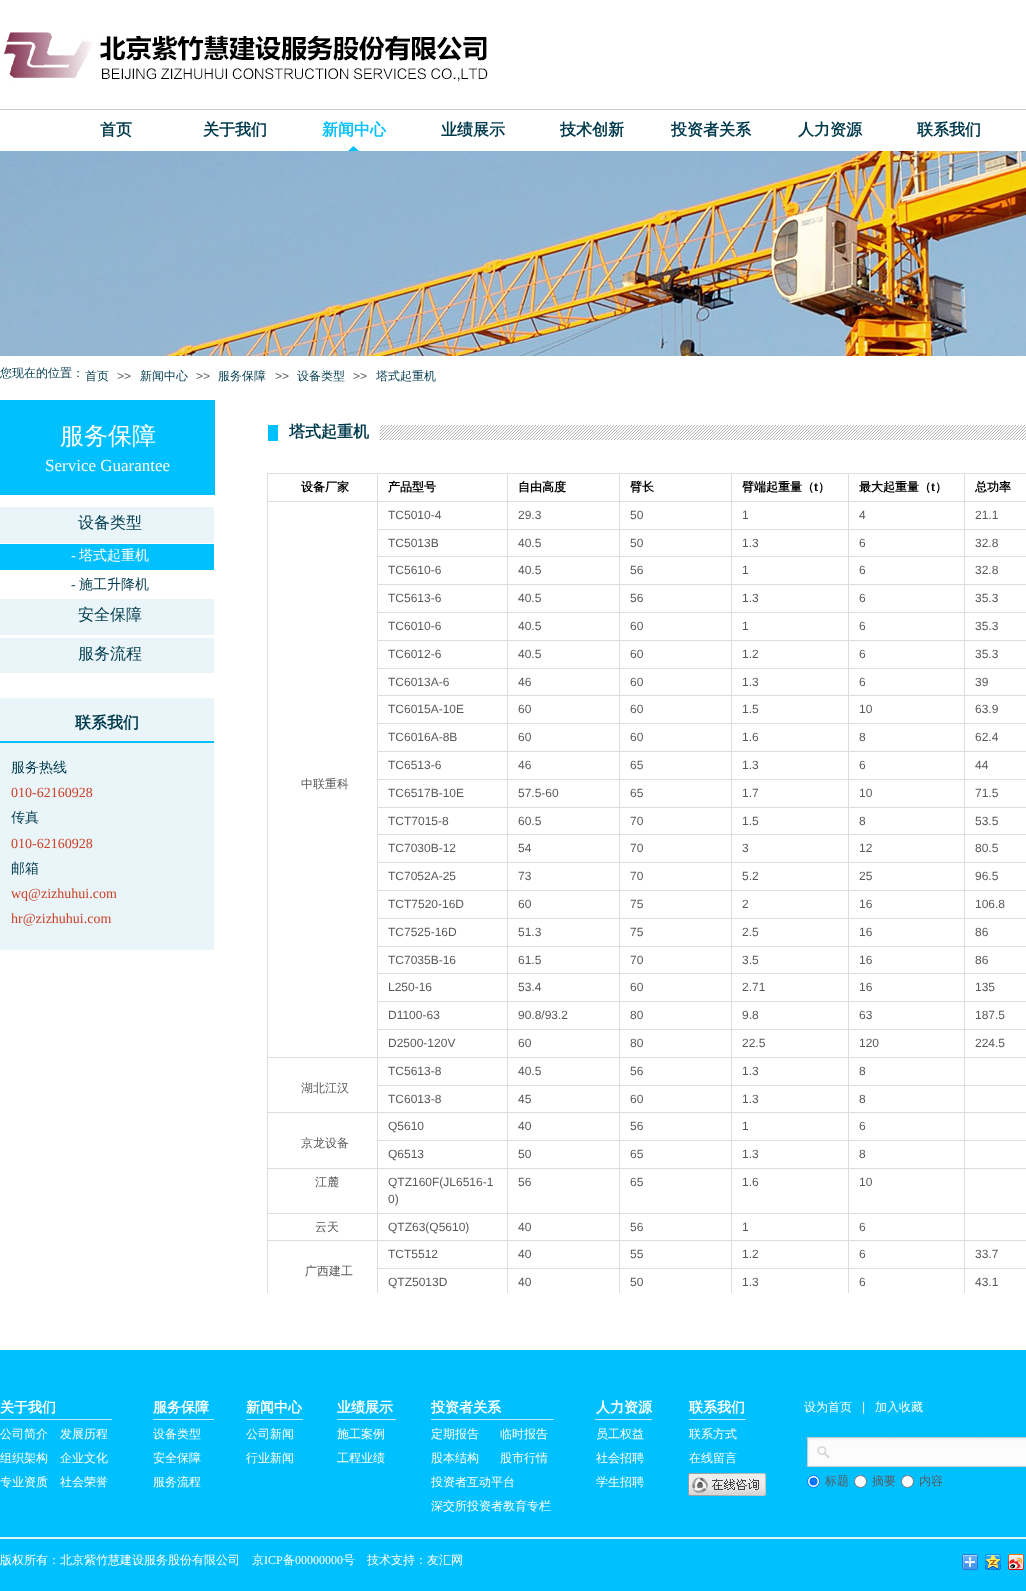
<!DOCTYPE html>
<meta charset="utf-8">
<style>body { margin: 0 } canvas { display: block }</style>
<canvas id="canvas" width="1026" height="1591"></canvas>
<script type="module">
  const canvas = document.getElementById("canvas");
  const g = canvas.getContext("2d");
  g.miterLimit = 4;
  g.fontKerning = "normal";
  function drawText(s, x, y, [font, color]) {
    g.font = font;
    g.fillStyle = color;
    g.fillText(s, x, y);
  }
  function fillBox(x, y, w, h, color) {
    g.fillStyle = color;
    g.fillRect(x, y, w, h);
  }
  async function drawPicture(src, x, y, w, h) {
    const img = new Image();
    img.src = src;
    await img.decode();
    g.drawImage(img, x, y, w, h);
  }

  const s1 = ["bold 16px WenQuanYi Zen Hei", "#003A4D"];
  const s2 = ["bold 16px WenQuanYi Zen Hei", "#00C0FF"];
  const s3 = ["500 12px WenQuanYi Zen Hei", "#003A4D"];
  const s4 = ["12px Liberation Sans", "#5A5A5A"];
  const s5 = ["500 24px WenQuanYi Zen Hei", "#FFFFFF"];
  const s6 = ["17px Liberation Serif", "#FFFFFF"];
  const s7 = ["500 16px WenQuanYi Zen Hei", "#003A4D"];
  const s8 = ["bold 12px WenQuanYi Zen Hei", "#000000"];
  const s9 = ["bold 12px Liberation Sans", "#000000"];
  const s10 = ["500 12px WenQuanYi Zen Hei", "#5A5A5A"];
  const s11 = ["14px Liberation Serif", "#FFFFFF"];
  const s12 = ["500 14px WenQuanYi Zen Hei", "#FFFFFF"];
  const s13 = ["14px Liberation Serif", "#003A4D"];
  const s14 = ["500 14px WenQuanYi Zen Hei", "#003A4D"];
  const s15 = ["14px Liberation Serif", "#CC4125"];
  const s16 = ["bold 14px WenQuanYi Zen Hei", "#FFFFFF"];
  const s17 = ["500 12px WenQuanYi Zen Hei", "#FFFFFF"];
  const s18 = ["12px Liberation Sans", "#FFFFFF"];
  const s19 = ["12px Liberation Serif", "#FFFFFF"];

  fillBox(0, 0, 1026, 1591, "#FFFFFF");
  fillBox(0, 109, 1026, 1, "#CCCCCC");
  await drawPicture("pic1.png", 1, 32, 487, 50);
  drawText("首页", 100, 135, s1);
  drawText("关于我们", 203, 135, s1);
  await drawPicture("pic2.png", 347, 145, 13, 6);
  drawText("新闻中心", 322, 135, s2);
  drawText("业绩展示", 441, 135, s1);
  drawText("技术创新", 560, 135, s1);
  drawText("投资者关系", 671, 135, s1);
  drawText("人力资源", 798, 135, s1);
  drawText("联系我们", 917, 135, s1);
  await drawPicture("pic3.png", 0, 151, 1026, 205);
  drawText("您现在的位置：", 0, 377, s3);
  drawText("首页", 85, 380, s3);
  drawText(">>", 117, 380, s4);
  drawText("新闻中心", 140, 380, s3);
  drawText(">>", 196, 380, s4);
  drawText("服务保障", 218, 380, s3);
  drawText(">>", 275, 380, s4);
  drawText("设备类型", 297, 380, s3);
  drawText(">>", 353, 380, s4);
  drawText("塔式起重机", 376, 380, s3);
  fillBox(0, 400, 215, 95, "#00C0FF");
  drawText("服务保障", 60, 444, s5);
  drawText("Service Guarantee", 45, 471, s6);
  fillBox(268, 425, 10, 16, "#00C0FF");
  drawText("塔式起重机", 289, 437, s1);
  await drawPicture("pic4.png", 380, 425, 646, 15);
  fillBox(0, 507, 214, 36, "#E9F5F9");
  drawText("设备类型", 78, 528, s7);
  fillBox(267, 473, 759, 1, "#DDDDDD");
  fillBox(267, 473, 1, 820, "#DDDDDD");
  drawText("设备厂家", 301, 491, s8);
  fillBox(964, 501, 62, 1, "#DDDDDD");
  fillBox(964, 529, 62, 1, "#DDDDDD");
  fillBox(964, 556, 62, 1, "#DDDDDD");
  fillBox(964, 584, 62, 1, "#DDDDDD");
  fillBox(964, 612, 62, 1, "#DDDDDD");
  fillBox(964, 640, 62, 1, "#DDDDDD");
  fillBox(964, 668, 62, 1, "#DDDDDD");
  fillBox(964, 695, 62, 1, "#DDDDDD");
  fillBox(964, 723, 62, 1, "#DDDDDD");
  fillBox(964, 751, 62, 1, "#DDDDDD");
  fillBox(964, 779, 62, 1, "#DDDDDD");
  fillBox(964, 807, 62, 1, "#DDDDDD");
  fillBox(964, 834, 62, 1, "#DDDDDD");
  fillBox(964, 862, 62, 1, "#DDDDDD");
  fillBox(964, 890, 62, 1, "#DDDDDD");
  fillBox(964, 918, 62, 1, "#DDDDDD");
  fillBox(964, 946, 62, 1, "#DDDDDD");
  fillBox(964, 973, 62, 1, "#DDDDDD");
  fillBox(964, 1001, 62, 1, "#DDDDDD");
  fillBox(964, 1029, 62, 1, "#DDDDDD");
  fillBox(964, 1057, 62, 1, "#DDDDDD");
  fillBox(964, 1085, 62, 1, "#DDDDDD");
  fillBox(964, 1112, 62, 1, "#DDDDDD");
  fillBox(964, 1140, 62, 1, "#DDDDDD");
  fillBox(964, 1168, 62, 1, "#DDDDDD");
  fillBox(964, 1213, 62, 1, "#DDDDDD");
  fillBox(964, 1240, 62, 1, "#DDDDDD");
  fillBox(964, 1268, 62, 1, "#DDDDDD");
  fillBox(964, 1268, 1, 25, "#DDDDDD");
  fillBox(848, 1268, 117, 1, "#DDDDDD");
  fillBox(964, 1240, 1, 29, "#DDDDDD");
  fillBox(848, 1240, 117, 1, "#DDDDDD");
  fillBox(964, 1213, 1, 28, "#DDDDDD");
  fillBox(848, 1213, 117, 1, "#DDDDDD");
  fillBox(964, 1168, 1, 46, "#DDDDDD");
  fillBox(848, 1168, 117, 1, "#DDDDDD");
  fillBox(964, 1140, 1, 29, "#DDDDDD");
  fillBox(848, 1140, 117, 1, "#DDDDDD");
  fillBox(964, 1112, 1, 29, "#DDDDDD");
  fillBox(848, 1112, 117, 1, "#DDDDDD");
  fillBox(964, 1085, 1, 28, "#DDDDDD");
  fillBox(848, 1085, 117, 1, "#DDDDDD");
  fillBox(964, 1057, 1, 29, "#DDDDDD");
  fillBox(848, 1057, 117, 1, "#DDDDDD");
  fillBox(964, 1029, 1, 29, "#DDDDDD");
  fillBox(848, 1029, 117, 1, "#DDDDDD");
  fillBox(964, 1001, 1, 29, "#DDDDDD");
  fillBox(848, 1001, 117, 1, "#DDDDDD");
  fillBox(964, 973, 1, 29, "#DDDDDD");
  fillBox(848, 973, 117, 1, "#DDDDDD");
  fillBox(964, 946, 1, 28, "#DDDDDD");
  fillBox(848, 946, 117, 1, "#DDDDDD");
  fillBox(964, 918, 1, 29, "#DDDDDD");
  fillBox(848, 918, 117, 1, "#DDDDDD");
  fillBox(964, 890, 1, 29, "#DDDDDD");
  fillBox(848, 890, 117, 1, "#DDDDDD");
  fillBox(964, 862, 1, 29, "#DDDDDD");
  fillBox(848, 862, 117, 1, "#DDDDDD");
  fillBox(964, 834, 1, 29, "#DDDDDD");
  fillBox(848, 834, 117, 1, "#DDDDDD");
  fillBox(964, 807, 1, 28, "#DDDDDD");
  fillBox(848, 807, 117, 1, "#DDDDDD");
  fillBox(964, 779, 1, 29, "#DDDDDD");
  fillBox(848, 779, 117, 1, "#DDDDDD");
  fillBox(964, 751, 1, 29, "#DDDDDD");
  fillBox(848, 751, 117, 1, "#DDDDDD");
  fillBox(964, 723, 1, 29, "#DDDDDD");
  fillBox(848, 723, 117, 1, "#DDDDDD");
  fillBox(964, 695, 1, 29, "#DDDDDD");
  fillBox(848, 695, 117, 1, "#DDDDDD");
  fillBox(964, 668, 1, 28, "#DDDDDD");
  fillBox(848, 668, 117, 1, "#DDDDDD");
  fillBox(964, 640, 1, 29, "#DDDDDD");
  fillBox(848, 640, 117, 1, "#DDDDDD");
  fillBox(964, 612, 1, 29, "#DDDDDD");
  fillBox(848, 612, 117, 1, "#DDDDDD");
  fillBox(964, 584, 1, 29, "#DDDDDD");
  fillBox(848, 584, 117, 1, "#DDDDDD");
  fillBox(964, 556, 1, 29, "#DDDDDD");
  fillBox(848, 556, 117, 1, "#DDDDDD");
  fillBox(964, 529, 1, 28, "#DDDDDD");
  fillBox(848, 529, 117, 1, "#DDDDDD");
  fillBox(964, 501, 1, 29, "#DDDDDD");
  fillBox(848, 501, 117, 1, "#DDDDDD");
  fillBox(848, 1268, 1, 25, "#DDDDDD");
  fillBox(731, 1268, 118, 1, "#DDDDDD");
  fillBox(848, 1240, 1, 29, "#DDDDDD");
  fillBox(731, 1240, 118, 1, "#DDDDDD");
  fillBox(848, 1213, 1, 28, "#DDDDDD");
  fillBox(731, 1213, 118, 1, "#DDDDDD");
  fillBox(848, 1168, 1, 46, "#DDDDDD");
  fillBox(731, 1168, 118, 1, "#DDDDDD");
  fillBox(848, 1140, 1, 29, "#DDDDDD");
  fillBox(731, 1140, 118, 1, "#DDDDDD");
  fillBox(848, 1112, 1, 29, "#DDDDDD");
  fillBox(731, 1112, 118, 1, "#DDDDDD");
  fillBox(848, 1085, 1, 28, "#DDDDDD");
  fillBox(731, 1085, 118, 1, "#DDDDDD");
  fillBox(848, 1057, 1, 29, "#DDDDDD");
  fillBox(731, 1057, 118, 1, "#DDDDDD");
  fillBox(848, 1029, 1, 29, "#DDDDDD");
  fillBox(731, 1029, 118, 1, "#DDDDDD");
  fillBox(848, 1001, 1, 29, "#DDDDDD");
  fillBox(731, 1001, 118, 1, "#DDDDDD");
  fillBox(848, 973, 1, 29, "#DDDDDD");
  fillBox(731, 973, 118, 1, "#DDDDDD");
  fillBox(848, 946, 1, 28, "#DDDDDD");
  fillBox(731, 946, 118, 1, "#DDDDDD");
  fillBox(848, 918, 1, 29, "#DDDDDD");
  fillBox(731, 918, 118, 1, "#DDDDDD");
  fillBox(848, 890, 1, 29, "#DDDDDD");
  fillBox(731, 890, 118, 1, "#DDDDDD");
  fillBox(848, 862, 1, 29, "#DDDDDD");
  fillBox(731, 862, 118, 1, "#DDDDDD");
  fillBox(848, 834, 1, 29, "#DDDDDD");
  fillBox(731, 834, 118, 1, "#DDDDDD");
  fillBox(848, 807, 1, 28, "#DDDDDD");
  fillBox(731, 807, 118, 1, "#DDDDDD");
  fillBox(848, 779, 1, 29, "#DDDDDD");
  fillBox(731, 779, 118, 1, "#DDDDDD");
  fillBox(848, 751, 1, 29, "#DDDDDD");
  fillBox(731, 751, 118, 1, "#DDDDDD");
  fillBox(848, 723, 1, 29, "#DDDDDD");
  fillBox(731, 723, 118, 1, "#DDDDDD");
  fillBox(848, 695, 1, 29, "#DDDDDD");
  fillBox(731, 695, 118, 1, "#DDDDDD");
  fillBox(848, 668, 1, 28, "#DDDDDD");
  fillBox(731, 668, 118, 1, "#DDDDDD");
  fillBox(848, 640, 1, 29, "#DDDDDD");
  fillBox(731, 640, 118, 1, "#DDDDDD");
  fillBox(848, 612, 1, 29, "#DDDDDD");
  fillBox(731, 612, 118, 1, "#DDDDDD");
  fillBox(848, 584, 1, 29, "#DDDDDD");
  fillBox(731, 584, 118, 1, "#DDDDDD");
  fillBox(848, 556, 1, 29, "#DDDDDD");
  fillBox(731, 556, 118, 1, "#DDDDDD");
  fillBox(848, 529, 1, 28, "#DDDDDD");
  fillBox(731, 529, 118, 1, "#DDDDDD");
  fillBox(848, 501, 1, 29, "#DDDDDD");
  fillBox(731, 501, 118, 1, "#DDDDDD");
  fillBox(731, 1268, 1, 25, "#DDDDDD");
  fillBox(619, 1268, 113, 1, "#DDDDDD");
  fillBox(731, 1240, 1, 29, "#DDDDDD");
  fillBox(619, 1240, 113, 1, "#DDDDDD");
  fillBox(731, 1213, 1, 28, "#DDDDDD");
  fillBox(619, 1213, 113, 1, "#DDDDDD");
  fillBox(731, 1168, 1, 46, "#DDDDDD");
  fillBox(619, 1168, 113, 1, "#DDDDDD");
  fillBox(731, 1140, 1, 29, "#DDDDDD");
  fillBox(619, 1140, 113, 1, "#DDDDDD");
  fillBox(731, 1112, 1, 29, "#DDDDDD");
  fillBox(619, 1112, 113, 1, "#DDDDDD");
  fillBox(731, 1085, 1, 28, "#DDDDDD");
  fillBox(619, 1085, 113, 1, "#DDDDDD");
  fillBox(731, 1057, 1, 29, "#DDDDDD");
  fillBox(619, 1057, 113, 1, "#DDDDDD");
  fillBox(731, 1029, 1, 29, "#DDDDDD");
  fillBox(619, 1029, 113, 1, "#DDDDDD");
  fillBox(731, 1001, 1, 29, "#DDDDDD");
  fillBox(619, 1001, 113, 1, "#DDDDDD");
  fillBox(731, 973, 1, 29, "#DDDDDD");
  fillBox(619, 973, 113, 1, "#DDDDDD");
  fillBox(731, 946, 1, 28, "#DDDDDD");
  fillBox(619, 946, 113, 1, "#DDDDDD");
  fillBox(731, 918, 1, 29, "#DDDDDD");
  fillBox(619, 918, 113, 1, "#DDDDDD");
  fillBox(731, 890, 1, 29, "#DDDDDD");
  fillBox(619, 890, 113, 1, "#DDDDDD");
  fillBox(731, 862, 1, 29, "#DDDDDD");
  fillBox(619, 862, 113, 1, "#DDDDDD");
  fillBox(731, 834, 1, 29, "#DDDDDD");
  fillBox(619, 834, 113, 1, "#DDDDDD");
  fillBox(731, 807, 1, 28, "#DDDDDD");
  fillBox(619, 807, 113, 1, "#DDDDDD");
  fillBox(731, 779, 1, 29, "#DDDDDD");
  fillBox(619, 779, 113, 1, "#DDDDDD");
  fillBox(731, 751, 1, 29, "#DDDDDD");
  fillBox(619, 751, 113, 1, "#DDDDDD");
  fillBox(731, 723, 1, 29, "#DDDDDD");
  fillBox(619, 723, 113, 1, "#DDDDDD");
  fillBox(731, 695, 1, 29, "#DDDDDD");
  fillBox(619, 695, 113, 1, "#DDDDDD");
  fillBox(731, 668, 1, 28, "#DDDDDD");
  fillBox(619, 668, 113, 1, "#DDDDDD");
  fillBox(731, 640, 1, 29, "#DDDDDD");
  fillBox(619, 640, 113, 1, "#DDDDDD");
  fillBox(731, 612, 1, 29, "#DDDDDD");
  fillBox(619, 612, 113, 1, "#DDDDDD");
  fillBox(731, 584, 1, 29, "#DDDDDD");
  fillBox(619, 584, 113, 1, "#DDDDDD");
  fillBox(731, 556, 1, 29, "#DDDDDD");
  fillBox(619, 556, 113, 1, "#DDDDDD");
  fillBox(731, 529, 1, 28, "#DDDDDD");
  fillBox(619, 529, 113, 1, "#DDDDDD");
  fillBox(731, 501, 1, 29, "#DDDDDD");
  fillBox(619, 501, 113, 1, "#DDDDDD");
  fillBox(619, 1268, 1, 25, "#DDDDDD");
  fillBox(507, 1268, 113, 1, "#DDDDDD");
  fillBox(619, 1240, 1, 29, "#DDDDDD");
  fillBox(507, 1240, 113, 1, "#DDDDDD");
  fillBox(619, 1213, 1, 28, "#DDDDDD");
  fillBox(507, 1213, 113, 1, "#DDDDDD");
  fillBox(619, 1168, 1, 46, "#DDDDDD");
  fillBox(507, 1168, 113, 1, "#DDDDDD");
  fillBox(619, 1140, 1, 29, "#DDDDDD");
  fillBox(507, 1140, 113, 1, "#DDDDDD");
  fillBox(619, 1112, 1, 29, "#DDDDDD");
  fillBox(507, 1112, 113, 1, "#DDDDDD");
  fillBox(619, 1085, 1, 28, "#DDDDDD");
  fillBox(507, 1085, 113, 1, "#DDDDDD");
  fillBox(619, 1057, 1, 29, "#DDDDDD");
  fillBox(507, 1057, 113, 1, "#DDDDDD");
  fillBox(619, 1029, 1, 29, "#DDDDDD");
  fillBox(507, 1029, 113, 1, "#DDDDDD");
  fillBox(619, 1001, 1, 29, "#DDDDDD");
  fillBox(507, 1001, 113, 1, "#DDDDDD");
  fillBox(619, 973, 1, 29, "#DDDDDD");
  fillBox(507, 973, 113, 1, "#DDDDDD");
  fillBox(619, 946, 1, 28, "#DDDDDD");
  fillBox(507, 946, 113, 1, "#DDDDDD");
  fillBox(619, 918, 1, 29, "#DDDDDD");
  fillBox(507, 918, 113, 1, "#DDDDDD");
  fillBox(619, 890, 1, 29, "#DDDDDD");
  fillBox(507, 890, 113, 1, "#DDDDDD");
  fillBox(619, 862, 1, 29, "#DDDDDD");
  fillBox(507, 862, 113, 1, "#DDDDDD");
  fillBox(619, 834, 1, 29, "#DDDDDD");
  fillBox(507, 834, 113, 1, "#DDDDDD");
  fillBox(619, 807, 1, 28, "#DDDDDD");
  fillBox(507, 807, 113, 1, "#DDDDDD");
  fillBox(619, 779, 1, 29, "#DDDDDD");
  fillBox(507, 779, 113, 1, "#DDDDDD");
  fillBox(619, 751, 1, 29, "#DDDDDD");
  fillBox(507, 751, 113, 1, "#DDDDDD");
  fillBox(619, 723, 1, 29, "#DDDDDD");
  fillBox(507, 723, 113, 1, "#DDDDDD");
  fillBox(619, 695, 1, 29, "#DDDDDD");
  fillBox(507, 695, 113, 1, "#DDDDDD");
  fillBox(619, 668, 1, 28, "#DDDDDD");
  fillBox(507, 668, 113, 1, "#DDDDDD");
  fillBox(619, 640, 1, 29, "#DDDDDD");
  fillBox(507, 640, 113, 1, "#DDDDDD");
  fillBox(619, 612, 1, 29, "#DDDDDD");
  fillBox(507, 612, 113, 1, "#DDDDDD");
  fillBox(619, 584, 1, 29, "#DDDDDD");
  fillBox(507, 584, 113, 1, "#DDDDDD");
  fillBox(619, 556, 1, 29, "#DDDDDD");
  fillBox(507, 556, 113, 1, "#DDDDDD");
  fillBox(619, 529, 1, 28, "#DDDDDD");
  fillBox(507, 529, 113, 1, "#DDDDDD");
  fillBox(619, 501, 1, 29, "#DDDDDD");
  fillBox(507, 501, 113, 1, "#DDDDDD");
  fillBox(507, 1268, 1, 25, "#DDDDDD");
  fillBox(377, 1268, 131, 1, "#DDDDDD");
  fillBox(507, 1240, 1, 29, "#DDDDDD");
  fillBox(377, 1240, 131, 1, "#DDDDDD");
  fillBox(507, 1213, 1, 28, "#DDDDDD");
  fillBox(377, 1213, 131, 1, "#DDDDDD");
  fillBox(507, 1168, 1, 46, "#DDDDDD");
  fillBox(377, 1168, 131, 1, "#DDDDDD");
  fillBox(507, 1140, 1, 29, "#DDDDDD");
  fillBox(377, 1140, 131, 1, "#DDDDDD");
  fillBox(507, 1112, 1, 29, "#DDDDDD");
  fillBox(377, 1112, 131, 1, "#DDDDDD");
  fillBox(507, 1085, 1, 28, "#DDDDDD");
  fillBox(377, 1085, 131, 1, "#DDDDDD");
  fillBox(507, 1057, 1, 29, "#DDDDDD");
  fillBox(377, 1057, 131, 1, "#DDDDDD");
  fillBox(507, 1029, 1, 29, "#DDDDDD");
  fillBox(377, 1029, 131, 1, "#DDDDDD");
  fillBox(507, 1001, 1, 29, "#DDDDDD");
  fillBox(377, 1001, 131, 1, "#DDDDDD");
  fillBox(507, 973, 1, 29, "#DDDDDD");
  fillBox(377, 973, 131, 1, "#DDDDDD");
  fillBox(507, 946, 1, 28, "#DDDDDD");
  fillBox(377, 946, 131, 1, "#DDDDDD");
  fillBox(507, 918, 1, 29, "#DDDDDD");
  fillBox(377, 918, 131, 1, "#DDDDDD");
  fillBox(507, 890, 1, 29, "#DDDDDD");
  fillBox(377, 890, 131, 1, "#DDDDDD");
  fillBox(507, 862, 1, 29, "#DDDDDD");
  fillBox(377, 862, 131, 1, "#DDDDDD");
  fillBox(507, 834, 1, 29, "#DDDDDD");
  fillBox(377, 834, 131, 1, "#DDDDDD");
  fillBox(507, 807, 1, 28, "#DDDDDD");
  fillBox(377, 807, 131, 1, "#DDDDDD");
  fillBox(507, 779, 1, 29, "#DDDDDD");
  fillBox(377, 779, 131, 1, "#DDDDDD");
  fillBox(507, 751, 1, 29, "#DDDDDD");
  fillBox(377, 751, 131, 1, "#DDDDDD");
  fillBox(507, 723, 1, 29, "#DDDDDD");
  fillBox(377, 723, 131, 1, "#DDDDDD");
  fillBox(507, 695, 1, 29, "#DDDDDD");
  fillBox(377, 695, 131, 1, "#DDDDDD");
  fillBox(507, 668, 1, 28, "#DDDDDD");
  fillBox(377, 668, 131, 1, "#DDDDDD");
  fillBox(507, 640, 1, 29, "#DDDDDD");
  fillBox(377, 640, 131, 1, "#DDDDDD");
  fillBox(507, 612, 1, 29, "#DDDDDD");
  fillBox(377, 612, 131, 1, "#DDDDDD");
  fillBox(507, 584, 1, 29, "#DDDDDD");
  fillBox(377, 584, 131, 1, "#DDDDDD");
  fillBox(507, 556, 1, 29, "#DDDDDD");
  fillBox(377, 556, 131, 1, "#DDDDDD");
  fillBox(507, 529, 1, 28, "#DDDDDD");
  fillBox(377, 529, 131, 1, "#DDDDDD");
  fillBox(507, 501, 1, 29, "#DDDDDD");
  fillBox(377, 501, 131, 1, "#DDDDDD");
  fillBox(377, 1268, 1, 25, "#DDDDDD");
  fillBox(377, 1240, 1, 29, "#DDDDDD");
  fillBox(267, 1240, 111, 1, "#DDDDDD");
  fillBox(377, 1213, 1, 28, "#DDDDDD");
  fillBox(267, 1213, 111, 1, "#DDDDDD");
  fillBox(377, 1168, 1, 46, "#DDDDDD");
  fillBox(267, 1168, 111, 1, "#DDDDDD");
  fillBox(377, 1140, 1, 29, "#DDDDDD");
  fillBox(377, 1112, 1, 29, "#DDDDDD");
  fillBox(267, 1112, 111, 1, "#DDDDDD");
  fillBox(377, 1085, 1, 28, "#DDDDDD");
  fillBox(377, 1057, 1, 29, "#DDDDDD");
  fillBox(267, 1057, 111, 1, "#DDDDDD");
  fillBox(377, 1029, 1, 29, "#DDDDDD");
  fillBox(377, 1001, 1, 29, "#DDDDDD");
  fillBox(377, 973, 1, 29, "#DDDDDD");
  fillBox(377, 946, 1, 28, "#DDDDDD");
  fillBox(377, 918, 1, 29, "#DDDDDD");
  fillBox(377, 890, 1, 29, "#DDDDDD");
  fillBox(377, 862, 1, 29, "#DDDDDD");
  fillBox(377, 834, 1, 29, "#DDDDDD");
  fillBox(377, 807, 1, 28, "#DDDDDD");
  fillBox(377, 779, 1, 29, "#DDDDDD");
  fillBox(377, 751, 1, 29, "#DDDDDD");
  fillBox(377, 723, 1, 29, "#DDDDDD");
  fillBox(377, 695, 1, 29, "#DDDDDD");
  fillBox(377, 668, 1, 28, "#DDDDDD");
  fillBox(377, 640, 1, 29, "#DDDDDD");
  fillBox(377, 612, 1, 29, "#DDDDDD");
  fillBox(377, 584, 1, 29, "#DDDDDD");
  fillBox(377, 556, 1, 29, "#DDDDDD");
  fillBox(377, 529, 1, 28, "#DDDDDD");
  fillBox(377, 501, 1, 29, "#DDDDDD");
  fillBox(267, 501, 111, 1, "#DDDDDD");
  fillBox(377, 473, 1, 29, "#DDDDDD");
  drawText("产品型号", 388, 491, s8);
  fillBox(507, 473, 1, 29, "#DDDDDD");
  drawText("自由高度", 518, 491, s8);
  fillBox(619, 473, 1, 29, "#DDDDDD");
  drawText("臂长", 630, 491, s8);
  fillBox(731, 473, 1, 29, "#DDDDDD");
  drawText("臂端起重量（", 742, 491, s8);
  drawText("t", 814, 491, s9);
  drawText("）", 818, 491, s8);
  fillBox(848, 473, 1, 29, "#DDDDDD");
  drawText("最大起重量（", 859, 491, s8);
  drawText("t", 931, 491, s9);
  drawText("）", 935, 491, s8);
  fillBox(964, 473, 1, 29, "#DDDDDD");
  drawText("总功率", 975, 491, s8);
  drawText("TC5010-4", 388, 519, s4);
  drawText("29.3", 518, 519, s4);
  drawText("50", 630, 519, s4);
  drawText("1", 742, 519, s4);
  drawText("4", 859, 519, s4);
  drawText("21.1", 975, 519, s4);
  drawText("中联重科", 301, 788, s10);
  drawText("TC5013B", 388, 547, s4);
  drawText("40.5", 518, 547, s4);
  drawText("50", 630, 547, s4);
  drawText("1.3", 742, 547, s4);
  drawText("6", 859, 547, s4);
  drawText("32.8", 975, 547, s4);
  drawText("TC5610-6", 388, 574, s4);
  drawText("40.5", 518, 574, s4);
  drawText("56", 630, 574, s4);
  drawText("1", 742, 574, s4);
  drawText("6", 859, 574, s4);
  drawText("32.8", 975, 574, s4);
  drawText("TC5613-6", 388, 602, s4);
  drawText("40.5", 518, 602, s4);
  drawText("56", 630, 602, s4);
  drawText("1.3", 742, 602, s4);
  drawText("6", 859, 602, s4);
  drawText("35.3", 975, 602, s4);
  drawText("TC6010-6", 388, 630, s4);
  drawText("40.5", 518, 630, s4);
  drawText("60", 630, 630, s4);
  drawText("1", 742, 630, s4);
  drawText("6", 859, 630, s4);
  drawText("35.3", 975, 630, s4);
  drawText("TC6012-6", 388, 658, s4);
  drawText("40.5", 518, 658, s4);
  drawText("60", 630, 658, s4);
  drawText("1.2", 742, 658, s4);
  drawText("6", 859, 658, s4);
  drawText("35.3", 975, 658, s4);
  drawText("TC6013A-6", 388, 686, s4);
  drawText("46", 518, 686, s4);
  drawText("60", 630, 686, s4);
  drawText("1.3", 742, 686, s4);
  drawText("6", 859, 686, s4);
  drawText("39", 975, 686, s4);
  drawText("TC6015A-10E", 388, 713, s4);
  drawText("60", 518, 713, s4);
  drawText("60", 630, 713, s4);
  drawText("1.5", 742, 713, s4);
  drawText("10", 859, 713, s4);
  drawText("63.9", 975, 713, s4);
  drawText("TC6016A-8B", 388, 741, s4);
  drawText("60", 518, 741, s4);
  drawText("60", 630, 741, s4);
  drawText("1.6", 742, 741, s4);
  drawText("8", 859, 741, s4);
  drawText("62.4", 975, 741, s4);
  drawText("TC6513-6", 388, 769, s4);
  drawText("46", 518, 769, s4);
  drawText("65", 630, 769, s4);
  drawText("1.3", 742, 769, s4);
  drawText("6", 859, 769, s4);
  drawText("44", 975, 769, s4);
  drawText("TC6517B-10E", 388, 797, s4);
  drawText("57.5-60", 518, 797, s4);
  drawText("65", 630, 797, s4);
  drawText("1.7", 742, 797, s4);
  drawText("10", 859, 797, s4);
  drawText("71.5", 975, 797, s4);
  drawText("TCT7015-8", 388, 825, s4);
  drawText("60.5", 518, 825, s4);
  drawText("70", 630, 825, s4);
  drawText("1.5", 742, 825, s4);
  drawText("8", 859, 825, s4);
  drawText("53.5", 975, 825, s4);
  drawText("TC7030B-12", 388, 852, s4);
  drawText("54", 518, 852, s4);
  drawText("70", 630, 852, s4);
  drawText("3", 742, 852, s4);
  drawText("12", 859, 852, s4);
  drawText("80.5", 975, 852, s4);
  drawText("TC7052A-25", 388, 880, s4);
  drawText("73", 518, 880, s4);
  drawText("70", 630, 880, s4);
  drawText("5.2", 742, 880, s4);
  drawText("25", 859, 880, s4);
  drawText("96.5", 975, 880, s4);
  drawText("TCT7520-16D", 388, 908, s4);
  drawText("60", 518, 908, s4);
  drawText("75", 630, 908, s4);
  drawText("2", 742, 908, s4);
  drawText("16", 859, 908, s4);
  drawText("106.8", 975, 908, s4);
  drawText("TC7525-16D", 388, 936, s4);
  drawText("51.3", 518, 936, s4);
  drawText("75", 630, 936, s4);
  drawText("2.5", 742, 936, s4);
  drawText("16", 859, 936, s4);
  drawText("86", 975, 936, s4);
  drawText("TC7035B-16", 388, 964, s4);
  drawText("61.5", 518, 964, s4);
  drawText("70", 630, 964, s4);
  drawText("3.5", 742, 964, s4);
  drawText("16", 859, 964, s4);
  drawText("86", 975, 964, s4);
  drawText("L250-16", 388, 991, s4);
  drawText("53.4", 518, 991, s4);
  drawText("60", 630, 991, s4);
  drawText("2.71", 742, 991, s4);
  drawText("16", 859, 991, s4);
  drawText("135", 975, 991, s4);
  drawText("D1100-63", 388, 1019, s4);
  drawText("90.8/93.2", 518, 1019, s4);
  drawText("80", 630, 1019, s4);
  drawText("9.8", 742, 1019, s4);
  drawText("63", 859, 1019, s4);
  drawText("187.5", 975, 1019, s4);
  drawText("D2500-120V", 388, 1047, s4);
  drawText("60", 518, 1047, s4);
  drawText("80", 630, 1047, s4);
  drawText("22.5", 742, 1047, s4);
  drawText("120", 859, 1047, s4);
  drawText("224.5", 975, 1047, s4);
  drawText("TC5613-8", 388, 1075, s4);
  drawText("40.5", 518, 1075, s4);
  drawText("56", 630, 1075, s4);
  drawText("1.3", 742, 1075, s4);
  drawText("8", 859, 1075, s4);
  drawText("湖北江汉", 301, 1092, s10);
  drawText("TC6013-8", 388, 1103, s4);
  drawText("45", 518, 1103, s4);
  drawText("60", 630, 1103, s4);
  drawText("1.3", 742, 1103, s4);
  drawText("8", 859, 1103, s4);
  drawText("Q5610", 388, 1130, s4);
  drawText("40", 518, 1130, s4);
  drawText("56", 630, 1130, s4);
  drawText("1", 742, 1130, s4);
  drawText("6", 859, 1130, s4);
  drawText("京龙设备", 301, 1147, s10);
  drawText("Q6513", 388, 1158, s4);
  drawText("50", 518, 1158, s4);
  drawText("65", 630, 1158, s4);
  drawText("1.3", 742, 1158, s4);
  drawText("8", 859, 1158, s4);
  drawText("江麓", 315, 1186, s10);
  drawText("QTZ160F(JL6516-1", 388, 1186, s4);
  drawText("0)", 388, 1203, s4);
  drawText("56", 518, 1186, s4);
  drawText("65", 630, 1186, s4);
  drawText("1.6", 742, 1186, s4);
  drawText("10", 859, 1186, s4);
  drawText("云天", 315, 1231, s10);
  drawText("QTZ63(Q5610)", 388, 1231, s4);
  drawText("40", 518, 1231, s4);
  drawText("56", 630, 1231, s4);
  drawText("1", 742, 1231, s4);
  drawText("6", 859, 1231, s4);
  drawText("TCT5512", 388, 1258, s4);
  drawText("40", 518, 1258, s4);
  drawText("55", 630, 1258, s4);
  drawText("1.2", 742, 1258, s4);
  drawText("6", 859, 1258, s4);
  drawText("33.7", 975, 1258, s4);
  drawText("广西建工", 305, 1275, s10);
  drawText("QTZ5013D", 388, 1286, s4);
  drawText("40", 518, 1286, s4);
  drawText("50", 630, 1286, s4);
  drawText("1.3", 742, 1286, s4);
  drawText("6", 859, 1286, s4);
  drawText("43.1", 975, 1286, s4);
  fillBox(0, 544, 214, 26, "#00C0FF");
  drawText("-", 71, 560, s11);
  drawText("塔式起重机", 79, 560, s12);
  drawText("-", 71, 589, s13);
  drawText("施工升降机", 79, 589, s14);
  fillBox(0, 599, 214, 36, "#E9F5F9");
  drawText("安全保障", 78, 620, s7);
  fillBox(0, 638, 214, 35, "#E9F5F9");
  drawText("服务流程", 78, 659, s7);
  fillBox(0, 698, 214, 252, "#E9F5F9");
  drawText("联系我们", 75, 728, s1);
  fillBox(0, 741, 214, 2, "#00C0FF");
  drawText("服务热线", 11, 772, s14);
  drawText("010-62160928", 11, 797, s15);
  drawText("传真", 11, 822, s14);
  drawText("010-62160928", 11, 848, s15);
  drawText("邮箱", 11, 873, s14);
  drawText("wq@zizhuhui.com‍", 11, 898, s15);
  drawText("hr@zizhuhui.com‍", 11, 923, s15);
  fillBox(0, 1350, 1026, 241, "#00C0FF");
  drawText("关于我们", 0, 1412, s16);
  drawText("公司简介", 0, 1438, s17);
  drawText("发展历程", 60, 1438, s17);
  drawText("组织架构", 0, 1462, s17);
  drawText("企业文化", 60, 1462, s17);
  drawText("专业资质", 0, 1486, s17);
  drawText("社会荣誉", 60, 1486, s17);
  drawText("服务保障", 153, 1412, s16);
  drawText("设备类型", 153, 1438, s17);
  drawText("安全保障", 153, 1462, s17);
  drawText("服务流程", 153, 1486, s17);
  drawText("新闻中心", 246, 1412, s16);
  drawText("公司新闻", 246, 1438, s17);
  drawText("行业新闻", 246, 1462, s17);
  drawText("业绩展示", 337, 1412, s16);
  drawText("施工案例", 337, 1438, s17);
  drawText("工程业绩", 337, 1462, s17);
  drawText("投资者关系", 431, 1412, s16);
  drawText("定期报告", 431, 1438, s17);
  drawText("临时报告", 500, 1438, s17);
  drawText("股本结构", 431, 1462, s17);
  drawText("股市行情", 500, 1462, s17);
  drawText("投资者互动平台", 431, 1486, s17);
  drawText("深交所投资者教育专栏", 431, 1510, s17);
  drawText("人力资源", 596, 1412, s16);
  drawText("员工权益", 596, 1438, s17);
  drawText("社会招聘", 596, 1462, s17);
  drawText("学生招聘", 596, 1486, s17);
  drawText("联系我们", 689, 1412, s16);
  drawText("联系方式", 689, 1438, s17);
  drawText("在线留言", 689, 1462, s17);
  drawText("设为首页", 804, 1411, s17);
  drawText("|", 862, 1411, s18);
  drawText("加入收藏", 875, 1411, s17);
  fillBox(0, 1419, 112, 1, "#BDE8FF");
  fillBox(153, 1419, 61, 1, "#BDE8FF");
  fillBox(246, 1419, 57, 1, "#BDE8FF");
  fillBox(337, 1419, 59, 1, "#BDE8FF");
  fillBox(431, 1419, 123, 1, "#BDE8FF");
  fillBox(595, 1419, 57, 1, "#BDE8FF");
  fillBox(689, 1419, 57, 1, "#BDE8FF");
  await drawPicture("pic5.png", 688, 1473, 78, 23);
  await drawPicture("pic6.png", 807, 1437, 25, 30);
  await drawPicture("pic7.png", 832, 1437, 194, 30);
  g.fillStyle = "#FFFFFF";
  g.beginPath();
  g.arc(813.5, 1481.5, 6, 0, Math.PI * 2);
  g.fill();
  g.strokeStyle = "#0075FF";
  g.stroke();
  g.fillStyle = "#0075FF";
  g.beginPath();
  g.arc(813.5, 1481.5, 4, 0, Math.PI * 2);
  g.fill();
  drawText("标题", 825, 1485, s10);
  g.fillStyle = "#FFFFFF";
  g.beginPath();
  g.arc(860.5, 1481.5, 6, 0, Math.PI * 2);
  g.fill();
  g.strokeStyle = "#767676";
  g.stroke();
  drawText("摘要", 872, 1485, s10);
  g.fillStyle = "#FFFFFF";
  g.beginPath();
  g.arc(907.5, 1481.5, 6, 0, Math.PI * 2);
  g.fill();
  g.stroke();
  drawText("内容", 919, 1485, s10);
  fillBox(0, 1537, 1026, 2, "#E1F5FF");
  drawText("版权所有：北京紫竹慧建设服务股份有限公司", 0, 1564, s17);
  drawText("京", 252, 1564, s17);
  drawText("ICP", 264, 1564, s19);
  drawText("备", 283, 1564, s17);
  drawText("00000000", 295, 1564, s19);
  drawText("号　技术支持：友汇网", 343, 1564, s17);
  await drawPicture("pic8.png", 962, 1554, 16, 16);
  await drawPicture("pic9.png", 985, 1554, 16, 16);
  await drawPicture("pic10.png", 1008, 1554, 16, 16);
</script>
